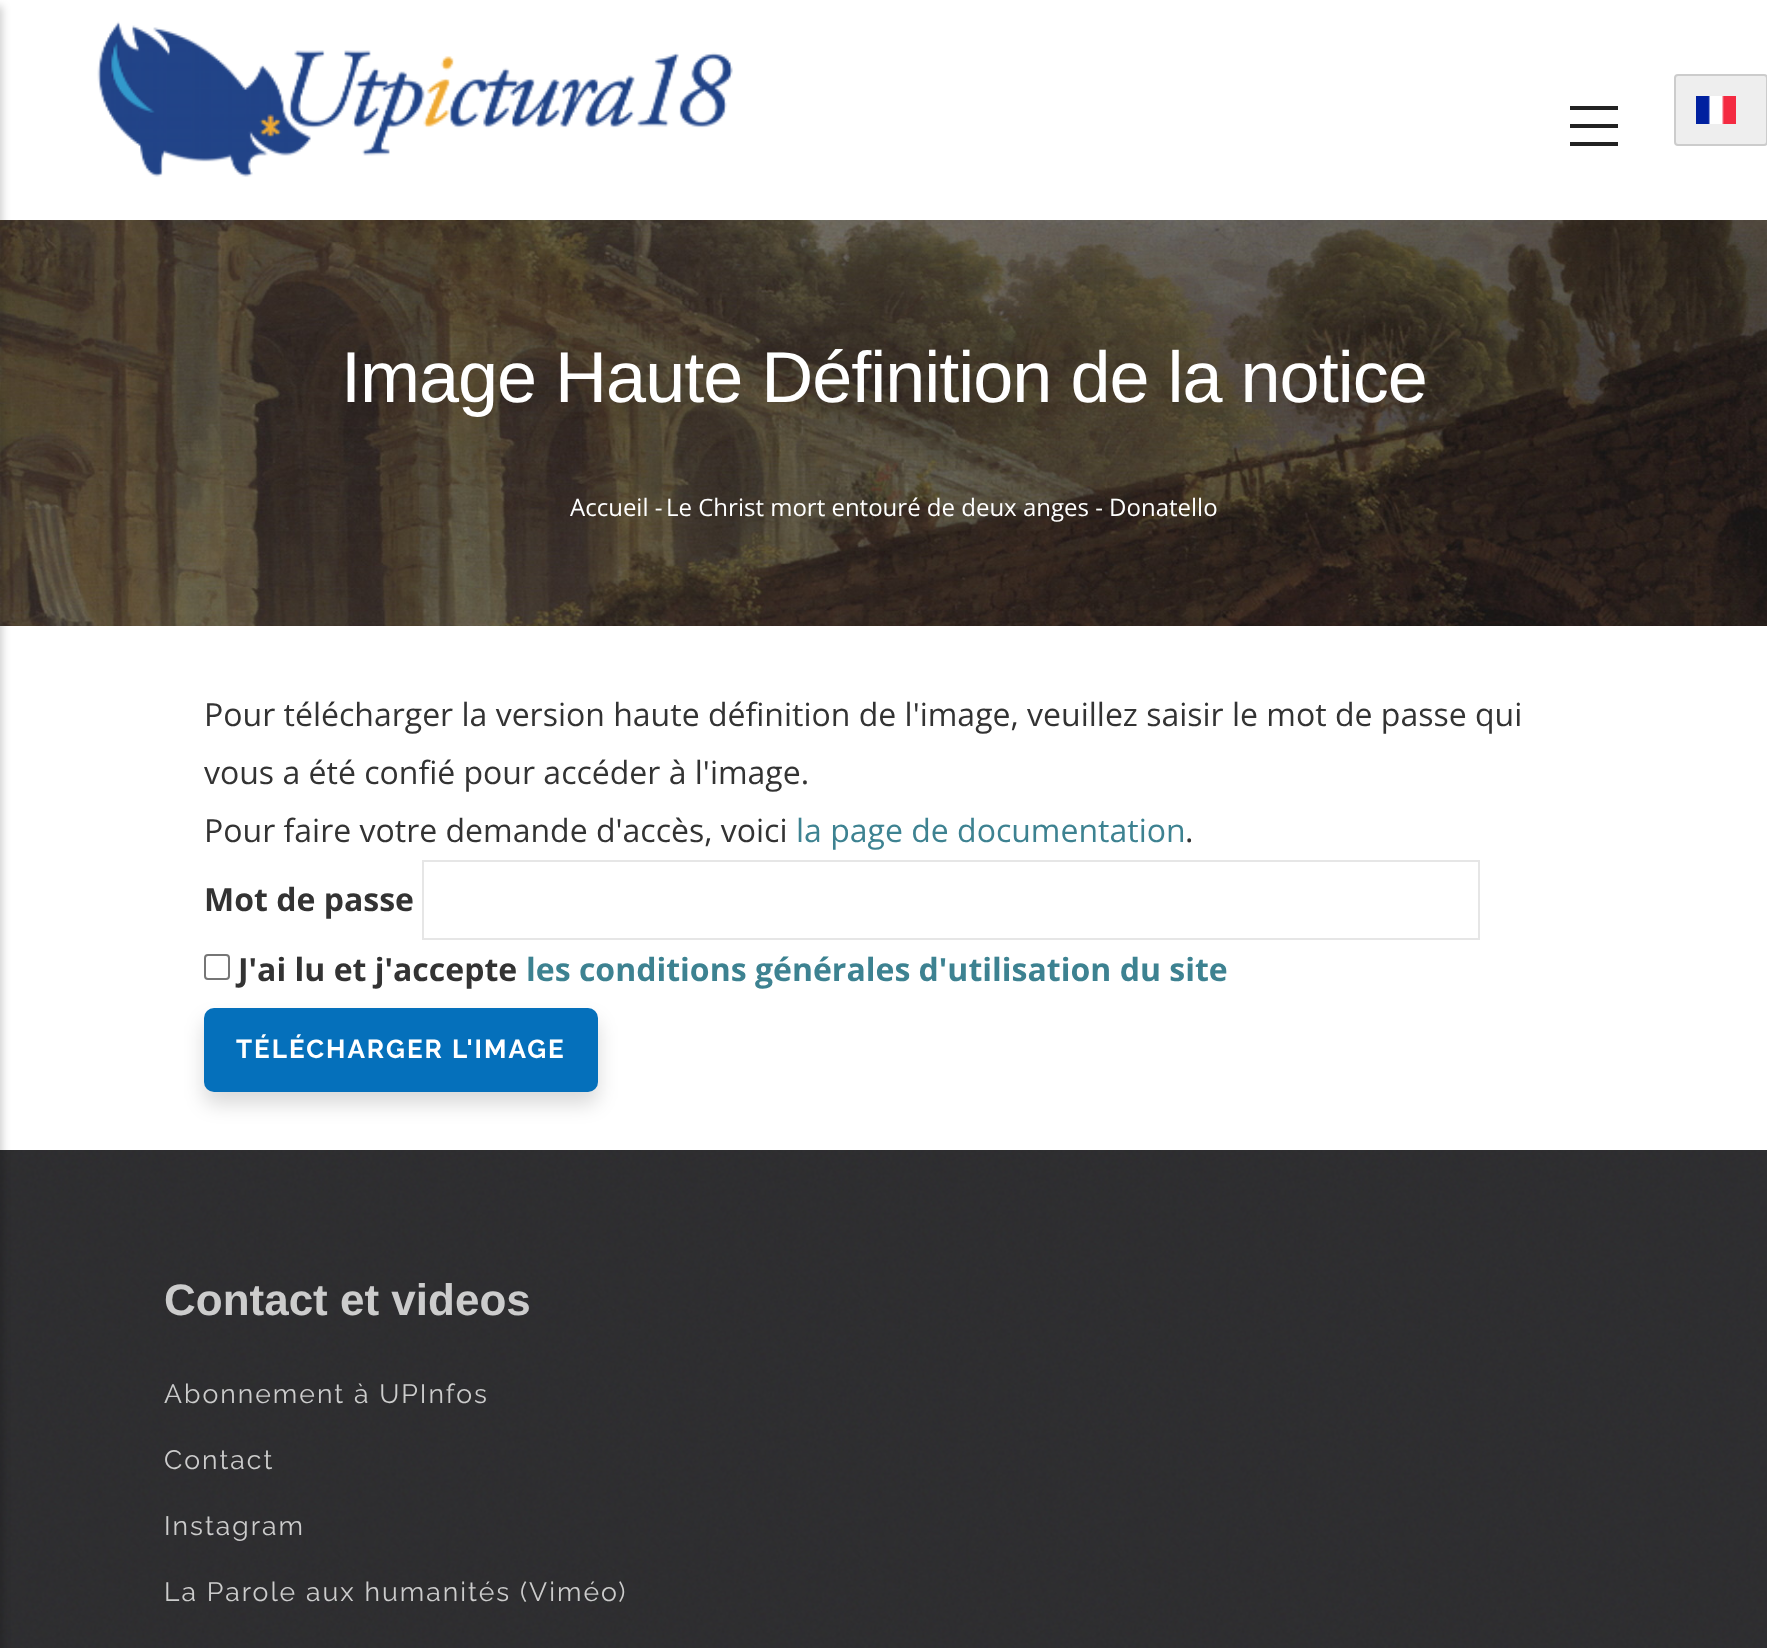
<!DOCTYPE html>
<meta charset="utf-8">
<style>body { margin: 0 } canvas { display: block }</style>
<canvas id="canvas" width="1767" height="1648"></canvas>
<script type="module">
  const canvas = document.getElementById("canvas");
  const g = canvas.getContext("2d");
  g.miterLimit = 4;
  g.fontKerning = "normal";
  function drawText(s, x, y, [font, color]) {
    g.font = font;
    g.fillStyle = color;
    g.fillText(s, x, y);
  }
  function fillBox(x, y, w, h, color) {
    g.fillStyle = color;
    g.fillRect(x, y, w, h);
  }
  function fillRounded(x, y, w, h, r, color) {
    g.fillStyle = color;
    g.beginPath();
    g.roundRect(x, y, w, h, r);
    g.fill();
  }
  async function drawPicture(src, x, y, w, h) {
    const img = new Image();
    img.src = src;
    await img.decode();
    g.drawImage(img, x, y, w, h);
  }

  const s1 = ["72px Liberation Sans", "#FFFFFF"];
  const s2 = ["24px Open Sans", "#FFFFFF"];
  const s3 = ["32px Open Sans", "#333333"];
  const s4 = ["32px Open Sans", "#3D8291"];
  const s5 = ["bold 32px Open Sans", "#333333"];
  const s6 = ["bold 32px Open Sans", "#3D8291"];
  const s7 = ["bold 26px Raleway", "#FFFFFF"];
  const s8 = ["bold 44px Liberation Sans", "#CCCCCC"];
  const s9 = ["26.6px Raleway", "#CCCCCC"];

  fillBox(0, 0, 1767, 1648, "#FFFFFF");
  await drawPicture("pic3.png", 0, 220, 1767, 406);
  await drawPicture("pic4.png", 0, 1150, 1767, 498);
  g.fillStyle = "rgba(0, 0, 0, 0.2)";
  g.filter = "blur(4px)";
  g.beginPath();
  g.rect(-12, 6, 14, 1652);
  g.fill();
  g.filter = "none";
  fillBox(1570, 106, 48, 4, "#222222");
  fillBox(1570, 124, 48, 4, "#222222");
  fillBox(1570, 142, 48, 4, "#222222");
  await drawPicture("pic1.png", 97, 21, 636, 156);
  g.fillStyle = "#EEEEEE";
  g.beginPath();
  g.roundRect(1675, 75, 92, 70, 3);
  g.fill();
  g.strokeStyle = "#CCCCCC";
  g.lineWidth = 2;
  g.stroke();
  await drawPicture("pic2.png", 1696, 96, 40, 28);
  g.letterSpacing = "-1px";
  drawText("Image Haute Définition de la notice", 341, 402, s1);
  g.letterSpacing = "0px";
  drawText("Accueil -", 570, 516, s2);
  drawText("Le Christ mort entouré de deux anges - Donatello", 666, 516, s2);
  drawText("Pour télécharger la version haute définition de l'image, veuillez saisir le mot de passe qui", 204, 726, s3);
  drawText("vous a été confié pour accéder à l'image.", 204, 784, s3);
  drawText("Pour faire votre demande d'accès, voici", 204, 842, s3);
  drawText("la page de documentation", 796, 842, s4);
  drawText(".", 1185, 842, s3);
  drawText("Mot de passe", 204, 911, s5);
  g.strokeStyle = "#E6E6E6";
  g.strokeRect(423, 861, 1056, 78);
  g.beginPath();
  g.roundRect(205, 955, 24, 24, 3);
  g.strokeStyle = "#767676";
  g.stroke();
  drawText("J'ai lu et j'accepte", 238, 981, s5);
  drawText("les conditions générales d'utilisation du site", 526, 981, s6);
  g.fillStyle = "rgba(0, 0, 0, 0.15)";
  g.filter = "blur(10px)";
  g.beginPath();
  g.roundRect(204, 1020, 394, 84, 10);
  g.fill();
  g.filter = "none";
  fillRounded(204, 1008, 394, 84, 10, "#0570BB");
  g.letterSpacing = "2px";
  drawText("TÉLÉCHARGER L'IMAGE", 236, 1058, s7);
  g.letterSpacing = "0px";
  drawText("Contact et videos", 164, 1315, s8);
  g.letterSpacing = "2px";
  drawText("Abonnement à UPInfos", 164, 1403, s9);
  drawText("Contact", 164, 1469, s9);
  drawText("Instagram", 164, 1535, s9);
  drawText("La Parole aux humanités (Viméo)", 164, 1601, s9);
</script>
